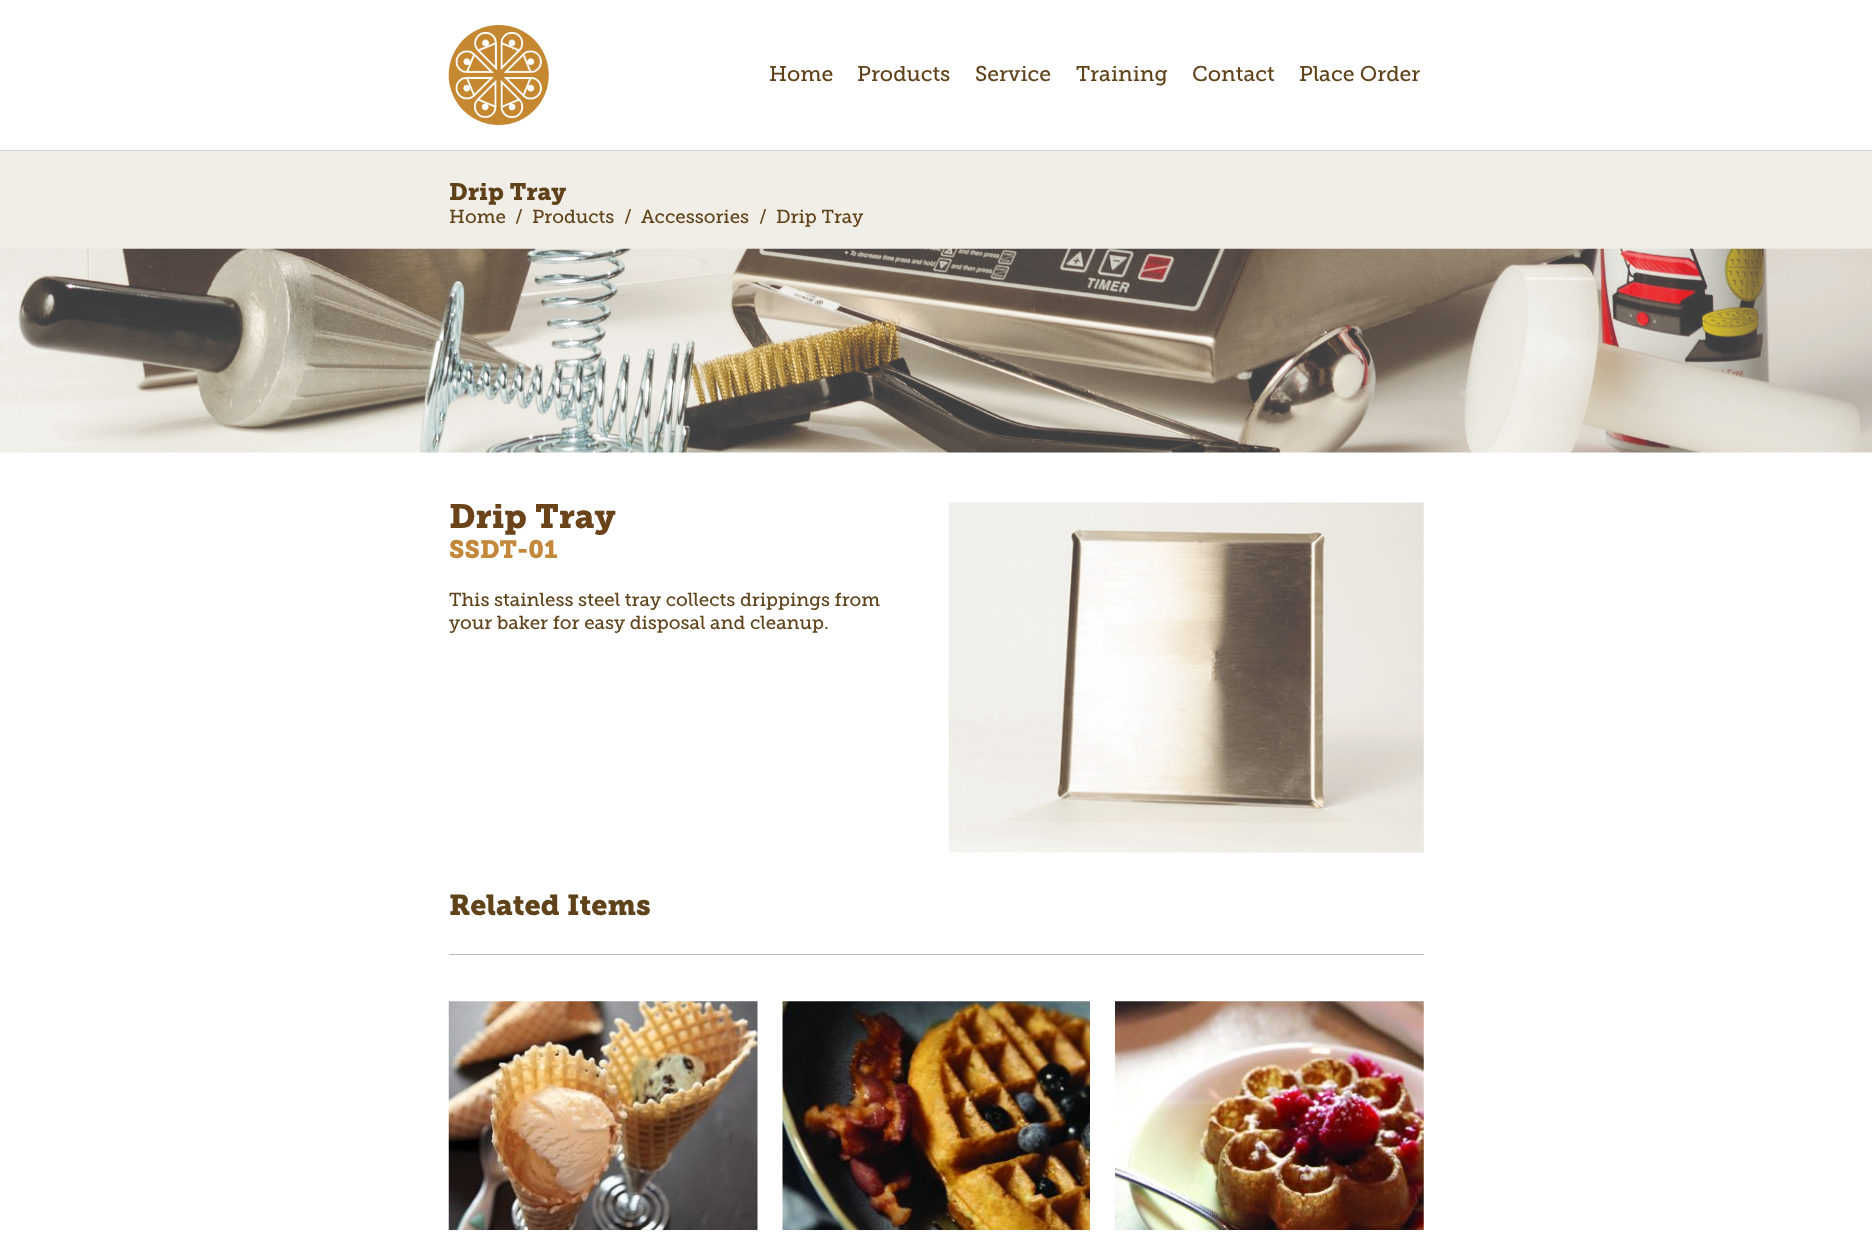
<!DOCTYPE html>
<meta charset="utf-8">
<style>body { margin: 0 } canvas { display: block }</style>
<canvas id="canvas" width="1872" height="1244"></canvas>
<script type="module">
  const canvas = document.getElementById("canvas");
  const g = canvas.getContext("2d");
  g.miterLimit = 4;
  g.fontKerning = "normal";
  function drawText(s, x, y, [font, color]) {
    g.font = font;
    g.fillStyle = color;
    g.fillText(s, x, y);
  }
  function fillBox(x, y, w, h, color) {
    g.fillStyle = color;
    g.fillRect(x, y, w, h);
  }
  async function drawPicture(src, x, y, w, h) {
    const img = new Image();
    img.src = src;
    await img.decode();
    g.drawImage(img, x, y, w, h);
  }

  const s1 = ["21.25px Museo", "#5F4219"];
  const s2 = ["23.75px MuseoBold", "#5F4219"];
  const s3 = ["18.75px Museo", "#5F4219"];
  const s4 = ["33.75px MuseoBold", "#6A431A"];
  const s5 = ["25px MuseoBold", "#C38839"];
  const s6 = ["28.75px MuseoBold", "#5F4219"];

  fillBox(0, 0, 1872, 1244, "#FFFFFF");
  await drawPicture("pic1.png", 448, 25, 101, 100);
  drawText("Home", 769, 81, s1);
  drawText("Products", 857, 81, s1);
  drawText("Service", 975, 81, s1);
  drawText("Training", 1076, 81, s1);
  drawText("Contact", 1192, 81, s1);
  drawText("Place Order", 1299, 81, s1);
  fillBox(0, 151, 1872, 98, "#F1EDE7");
  fillBox(0, 150, 1872, 1, "#D1D2D4");
  drawText("Drip Tray", 449, 200, s2);
  drawText("Home", 449, 223, s3);
  drawText("/", 515, 223, s3);
  drawText("Products", 532, 223, s3);
  drawText("/", 624, 223, s3);
  drawText("Accessories", 641, 223, s3);
  drawText("/", 759, 223, s3);
  drawText("Drip Tray", 776, 223, s3);
  await drawPicture("pic2.png", 0, 248, 1872, 205);
  drawText("Drip Tray", 449, 528, s4);
  drawText("SSDT-01", 449, 558, s5);
  drawText("This stainless steel tray collects drippings from", 449, 606, s3);
  drawText("your baker for easy disposal and cleanup.", 449, 629, s3);
  await drawPicture("pic3.png", 948, 502, 476, 351);
  drawText("Related Items", 449, 915, s6);
  fillBox(449, 954, 975, 1, "#BCBCBC");
  await drawPicture("pic4.png", 448, 1001, 310, 229);
  await drawPicture("pic5.png", 782, 1001, 308, 229);
  await drawPicture("pic6.png", 1115, 1001, 309, 229);
</script>
